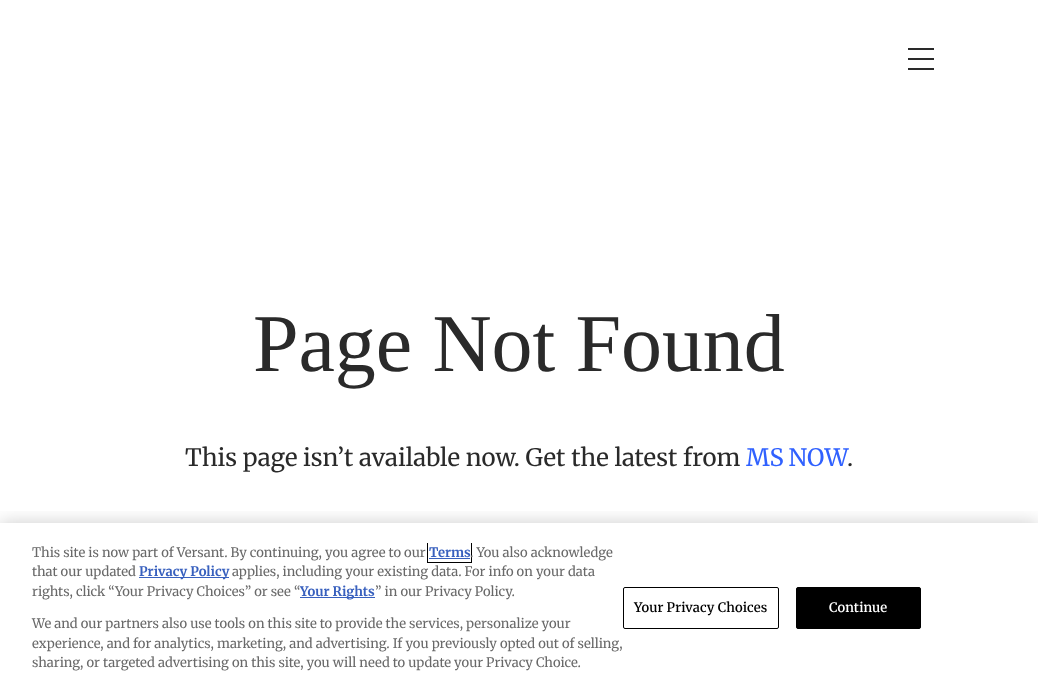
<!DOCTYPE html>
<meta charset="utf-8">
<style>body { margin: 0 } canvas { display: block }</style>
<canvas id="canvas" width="1038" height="696"></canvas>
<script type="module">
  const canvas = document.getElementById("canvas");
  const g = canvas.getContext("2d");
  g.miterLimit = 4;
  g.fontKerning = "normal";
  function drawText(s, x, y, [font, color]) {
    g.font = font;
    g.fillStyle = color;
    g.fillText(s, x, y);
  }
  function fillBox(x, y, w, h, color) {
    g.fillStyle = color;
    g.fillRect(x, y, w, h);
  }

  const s1 = ["82px Liberation Serif", "#2A2A2A"];
  const s2 = ["24px Merriweather", "#2A2A2A"];
  const s3 = ["24px Merriweather", "#3061FF"];
  const s4 = ["13px Merriweather", "#696969"];
  const s5 = ["bold 13px Merriweather", "#3860BE"];
  const s6 = ["600 13px Merriweather", "#000000"];
  const s7 = ["600 13px Merriweather", "#FFFFFF"];

  fillBox(0, 0, 1038, 696, "#FFFFFF");
  fillBox(908, 48, 26, 2, "#2A2A2A");
  fillBox(908, 58, 26, 2, "#2A2A2A");
  fillBox(908, 68, 26, 2, "#2A2A2A");
  g.letterSpacing = "-0.1px";
  drawText("Page Not Found", 253, 371, s1);
  g.letterSpacing = "0px";
  drawText("This page isn’t available now. Get the latest from", 185, 466, s2);
  g.wordSpacing = "-1px";
  drawText("MS NOW", 746, 466, s3);
  g.wordSpacing = "0px";
  drawText(".", 847, 466, s2);
  g.save();
  g.beginPath();
  g.rect(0, 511, 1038, 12);
  g.clip();
  g.fillStyle = "rgba(0, 0, 0, 0.2)";
  g.filter = "blur(9px)";
  g.beginPath();
  g.rect(0, 523, 1038, 173);
  g.fill();
  g.filter = "none";
  g.restore();
  drawText("This site is now part of Versant. By continuing, you agree to our", 32, 557, s4);
  drawText("Terms", 429, 557, s5);
  fillBox(429, 558, 41, 1, "#3860BE");
  g.save();
  g.beginPath();
  g.rect(32, 543, 591, 143);
  g.clip();
  g.strokeStyle = "#000000";
  g.strokeRect(427.5, 542.5, 44, 20);
  g.restore();
  drawText(". You also acknowledge", 470, 557, s4);
  drawText("that our updated", 32, 576, s4);
  fillBox(139, 577, 90, 1, "#3860BE");
  drawText("Privacy Policy", 139, 576, s5);
  drawText("applies, including your existing data. For info on your data", 232, 576, s4);
  drawText("rights, click “Your Privacy Choices” or see “", 32, 596, s4);
  fillBox(300, 597, 75, 1, "#3860BE");
  drawText("Your Rights", 300, 596, s5);
  drawText("” in our Privacy Policy.", 375, 596, s4);
  drawText("We and our partners also use tools on this site to provide the services, personalize your", 32, 628, s4);
  drawText("experience, and for analytics, marketing, and advertising. If you previously opted out of selling,", 32, 648, s4);
  drawText("sharing, or targeted advertising on this site, you will need to update your Privacy Choice.", 32, 667, s4);
  g.beginPath();
  g.roundRect(623.5, 587.5, 155, 41, 1.5);
  g.strokeStyle = "#000000";
  g.stroke();
  g.letterSpacing = "0.1px";
  drawText("Your Privacy Choices", 634, 612, s6);
  g.beginPath();
  g.roundRect(796.5, 587.5, 124, 41, 1.5);
  g.fill();
  g.stroke();
  drawText("Continue", 829, 612, s7);
</script>
